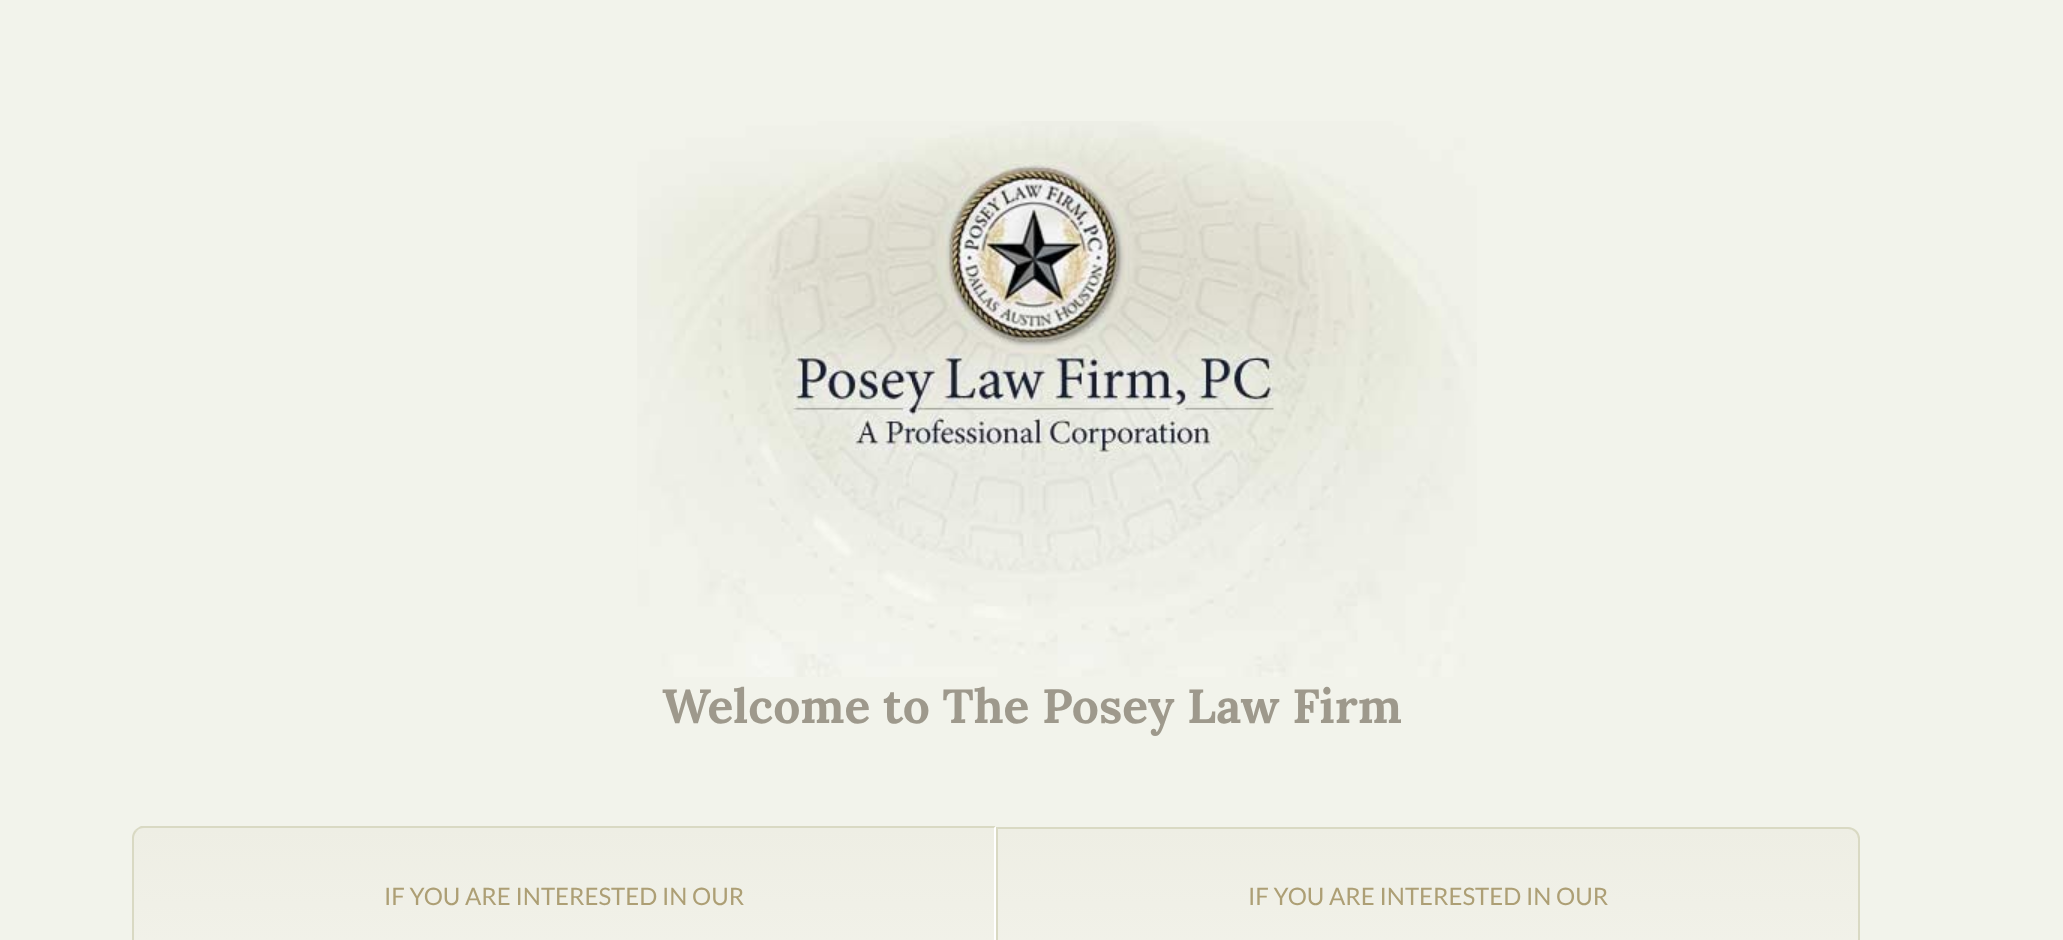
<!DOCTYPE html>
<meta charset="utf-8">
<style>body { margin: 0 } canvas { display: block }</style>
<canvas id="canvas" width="2063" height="940"></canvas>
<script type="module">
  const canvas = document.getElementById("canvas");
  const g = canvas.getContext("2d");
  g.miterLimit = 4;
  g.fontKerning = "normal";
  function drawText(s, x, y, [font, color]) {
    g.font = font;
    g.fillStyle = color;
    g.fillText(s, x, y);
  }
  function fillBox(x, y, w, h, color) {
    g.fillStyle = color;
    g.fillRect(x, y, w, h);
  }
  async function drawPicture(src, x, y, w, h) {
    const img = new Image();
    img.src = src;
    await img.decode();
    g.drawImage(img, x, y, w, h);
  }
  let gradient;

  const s1 = ["bold 48px Lora", "#9E998C"];
  const s2 = ["24px Lato", "#AD9F75"];

  fillBox(0, 0, 2063, 940, "#F2F3EB");
  await drawPicture("pic1.png", 637, 121, 840, 556);
  drawText("Welcome to The Posey Law Firm", 662, 723, s1);
  g.save();
  g.beginPath();
  g.moveTo(144, 827);
  g.lineTo(996, 827);
  g.lineTo(996, 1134);
  g.lineTo(144, 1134);
  g.bezierCurveTo(137.5, 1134, 132, 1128.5, 132, 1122);
  g.lineTo(132, 839);
  g.bezierCurveTo(132, 832.5, 137.5, 827, 144, 827);
  g.closePath();
  g.clip();
  gradient = g.createLinearGradient(564, 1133, 564, 828);
  gradient.addColorStop(0, "#F6F6F0");
  gradient.addColorStop(1, "#EEEEE4");
  g.fillStyle = gradient;
  g.fillRect(132, 828, 862, 112);
  g.restore();
  g.fillStyle = "#D9D9C3";
  g.beginPath();
  g.moveTo(144, 828);
  g.bezierCurveTo(141, 828, 138, 829, 137, 831);
  g.lineTo(135, 830);
  g.bezierCurveTo(137, 828, 139, 827, 141, 826);
  g.lineTo(996, 826);
  g.lineTo(994, 828);
  g.closePath();
  g.fill();
  g.fillStyle = "#FFFFFF";
  g.beginPath();
  g.moveTo(996, 826);
  g.lineTo(994, 828);
  g.lineTo(994, 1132);
  g.lineTo(996, 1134);
  g.closePath();
  g.fill();
  g.fillStyle = "#D9D9C3";
  g.beginPath();
  g.moveTo(132, 838);
  g.lineTo(132, 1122);
  g.bezierCurveTo(132, 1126, 133, 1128, 135, 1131);
  g.lineTo(137, 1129);
  g.bezierCurveTo(135, 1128, 134, 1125, 134, 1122);
  g.lineTo(134, 838);
  g.bezierCurveTo(134, 836, 135, 833, 137, 831);
  g.lineTo(135, 830);
  g.bezierCurveTo(133, 832, 132, 835, 132, 838);
  g.closePath();
  g.fill();
  drawText("IF YOU ARE INTERESTED IN OUR", 384, 905, s2);
  g.save();
  g.beginPath();
  g.moveTo(996, 827);
  g.lineTo(1848, 827);
  g.bezierCurveTo(1854.5, 827, 1860, 832.5, 1860, 839);
  g.lineTo(1860, 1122);
  g.bezierCurveTo(1860, 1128.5, 1854.5, 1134, 1848, 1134);
  g.lineTo(996, 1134);
  g.closePath();
  g.clip();
  gradient = g.createLinearGradient(1428, 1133, 1428, 828);
  gradient.addColorStop(0, "#F6F6F0");
  gradient.addColorStop(1, "#EEEEE4");
  g.fillStyle = gradient;
  g.fillRect(998, 828, 862, 112);
  g.restore();
  g.beginPath();
  g.moveTo(997, 828);
  g.lineTo(1848, 828);
  g.bezierCurveTo(1854, 828, 1859, 833, 1859, 839);
  g.lineTo(1859, 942);
  g.bezierCurveTo(1859, 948, 1854, 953, 1848, 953);
  g.lineTo(997, 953);
  g.closePath();
  g.strokeStyle = "#D9D9C3";
  g.lineWidth = 2;
  g.stroke();
  drawText("IF YOU ARE INTERESTED IN OUR", 1248, 905, s2);
</script>
